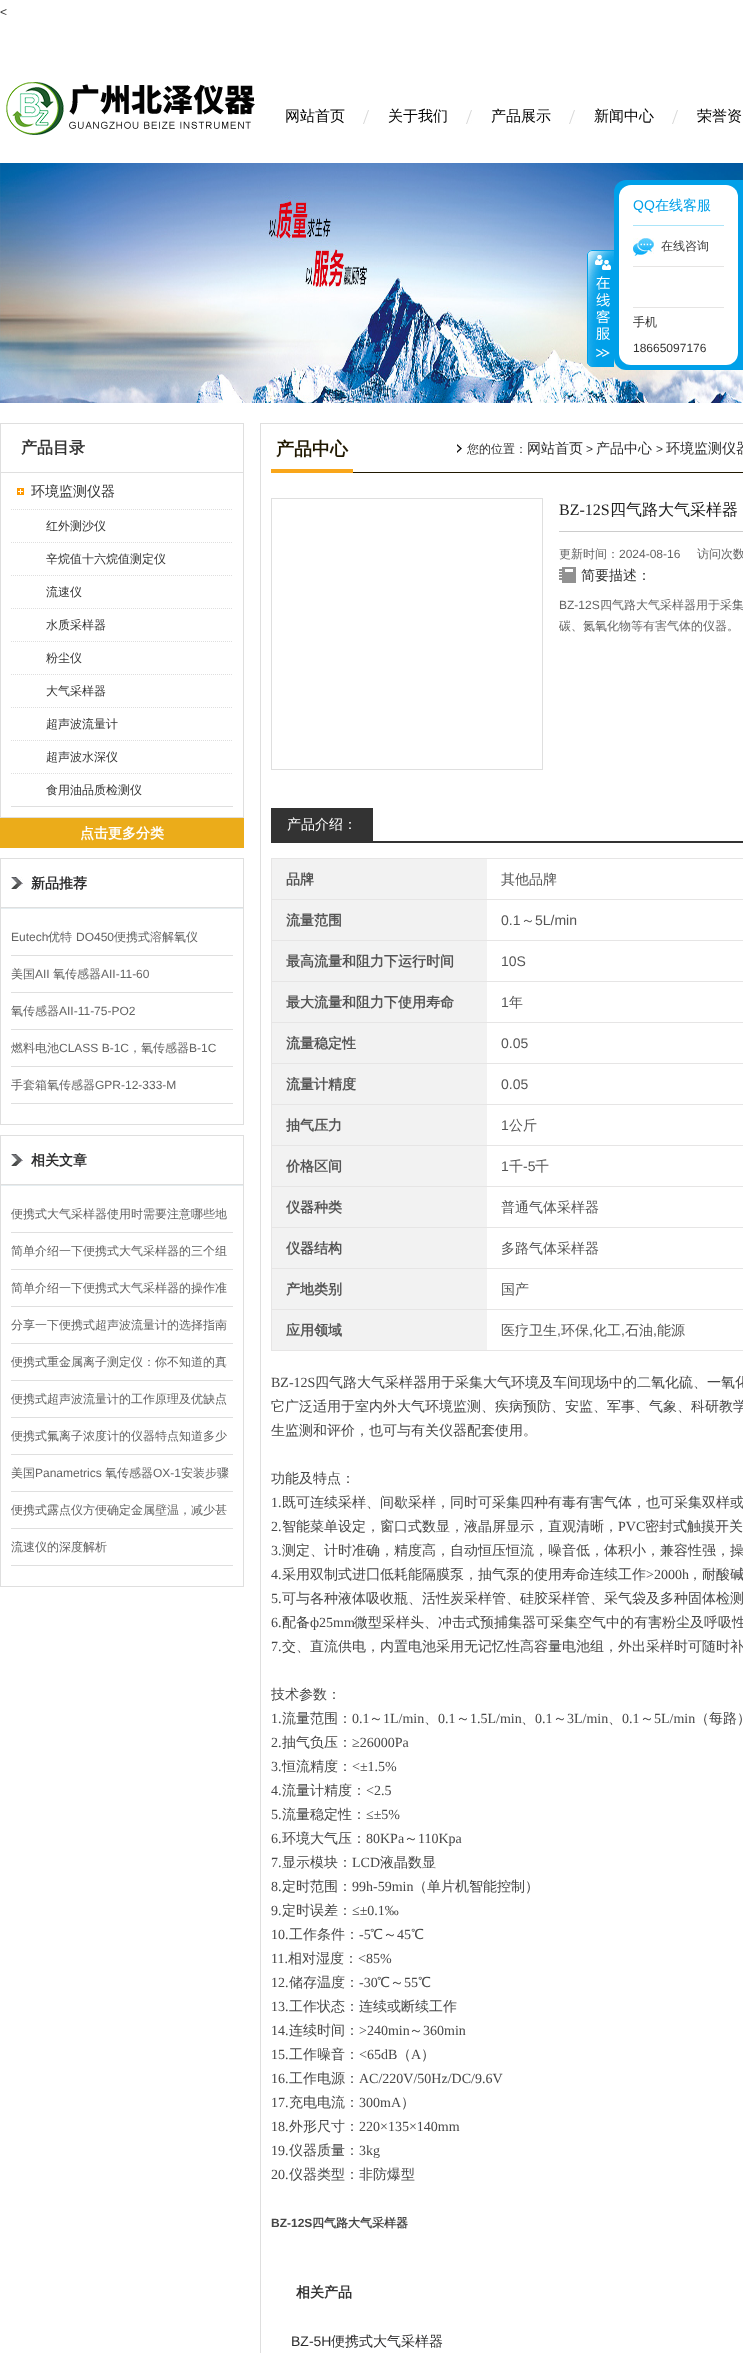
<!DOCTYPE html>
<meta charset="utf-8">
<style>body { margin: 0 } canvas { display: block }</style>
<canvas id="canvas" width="743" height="2353"></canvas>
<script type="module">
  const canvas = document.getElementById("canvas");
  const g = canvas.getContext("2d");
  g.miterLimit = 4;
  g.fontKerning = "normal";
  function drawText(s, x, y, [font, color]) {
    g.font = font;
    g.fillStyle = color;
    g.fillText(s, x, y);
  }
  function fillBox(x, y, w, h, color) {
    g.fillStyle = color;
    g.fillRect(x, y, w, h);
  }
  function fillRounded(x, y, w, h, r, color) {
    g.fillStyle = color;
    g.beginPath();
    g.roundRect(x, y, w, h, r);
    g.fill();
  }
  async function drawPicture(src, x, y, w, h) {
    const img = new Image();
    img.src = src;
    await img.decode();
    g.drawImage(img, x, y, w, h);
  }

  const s1 = ["12px Liberation Sans", "#333333"];
  const s2 = ["500 15px WenQuanYi Zen Hei", "#010101"];
  const s3 = ["14px Liberation Sans", "#00A0E9"];
  const s4 = ["500 14px WenQuanYi Zen Hei", "#00A0E9"];
  const s5 = ["500 12px WenQuanYi Zen Hei", "#333333"];
  const s6 = ["bold 16px WenQuanYi Zen Hei", "#333333"];
  const s7 = ["500 14px WenQuanYi Zen Hei", "#333333"];
  const s8 = ["bold 14px WenQuanYi Zen Hei", "#FFFFFF"];
  const s9 = ["bold 14px WenQuanYi Zen Hei", "#2D2D2E"];
  const s10 = ["12px Liberation Sans", "#636363"];
  const s11 = ["500 12px WenQuanYi Zen Hei", "#636363"];
  const s12 = ["bold 18px WenQuanYi Zen Hei", "#201800"];
  const s13 = ["500 14px WenQuanYi Zen Hei", "#2D2D2E"];
  const s14 = ["16px Liberation Serif", "#222222"];
  const s15 = ["500 16px WenQuanYi Zen Hei", "#222222"];
  const s16 = ["500 14px WenQuanYi Zen Hei", "#FFFFFF"];
  const s17 = ["bold 14px WenQuanYi Zen Hei", "#555555"];
  const s18 = ["500 14px WenQuanYi Zen Hei", "#555555"];
  const s19 = ["14px Liberation Sans", "#555555"];
  const s20 = ["14px Liberation Serif", "#474747"];
  const s21 = ["500 14px WenQuanYi Zen Hei", "#474747"];
  const s22 = ["bold 12px Liberation Sans", "#474747"];
  const s23 = ["bold 12px WenQuanYi Zen Hei", "#474747"];
  const s24 = ["bold 14px WenQuanYi Zen Hei", "#333333"];
  const s25 = ["14px Liberation Sans", "#2D2D2E"];

  fillBox(0, 0, 743, 2353, "#FFFFFF");
  drawText("<", 0, 16, s1);
  await drawPicture("pic1.png", 6, 82, 249, 53);
  drawText("网站首页", 285, 121, s2);
  await drawPicture("pic2.png", 363, 110, 6, 14);
  drawText("关于我们", 388, 121, s2);
  await drawPicture("pic2.png", 466, 110, 6, 14);
  drawText("产品展示", 491, 121, s2);
  await drawPicture("pic2.png", 569, 110, 6, 14);
  drawText("新闻中心", 594, 121, s2);
  await drawPicture("pic2.png", 672, 110, 6, 14);
  drawText("荣誉资", 697, 121, s2);
  await drawPicture("pic3.png", 0, 163, 743, 240);
  await drawPicture("pic4.png", 587, 250, 27, 117);
  g.fillStyle = "#00A0E9";
  g.beginPath();
  g.roundRect(614, 180, 129, 190, [12, 0, 0, 12]);
  g.fill();
  fillRounded(619, 185, 119, 180, 12, "#FFFFFF");
  fillBox(633, 225, 91, 1, "#ACE5F9");
  drawText("QQ", 633, 210, s3);
  drawText("在线客服", 655, 210, s4);
  fillBox(633, 266, 91, 1, "#E6E5E4");
  await drawPicture("pic5.png", 633, 238, 21, 18);
  drawText("在线咨询", 661, 250, s5);
  fillBox(633, 307, 91, 1, "#E6E5E4");
  drawText("手机", 633, 326, s5);
  drawText("18665097176", 633, 352, s1);
  g.strokeStyle = "#DFDFDF";
  g.strokeRect(0.5, 423.5, 243, 394);
  drawText("产品目录", 21, 453, s6);
  fillBox(1, 472, 242, 1, "#DFDFDF");
  fillBox(11, 806, 222, 1, "#DFDFDF");
  await drawPicture("pic6.png", 17, 488, 7, 7);
  drawText("环境监测仪器", 31, 496, s7);
  g.beginPath();
  g.moveTo(11, 509.5);
  g.lineTo(233, 509.5);
  g.setLineDash([1, 1]);
  g.stroke();
  drawText("红外测沙仪", 46, 530, s5);
  g.beginPath();
  g.moveTo(11, 542.5);
  g.lineTo(233, 542.5);
  g.stroke();
  drawText("辛烷值十六烷值测定仪", 46, 563, s5);
  g.beginPath();
  g.moveTo(11, 575.5);
  g.lineTo(233, 575.5);
  g.stroke();
  drawText("流速仪", 46, 596, s5);
  g.beginPath();
  g.moveTo(11, 608.5);
  g.lineTo(233, 608.5);
  g.stroke();
  drawText("水质采样器", 46, 629, s5);
  g.beginPath();
  g.moveTo(11, 641.5);
  g.lineTo(233, 641.5);
  g.stroke();
  drawText("粉尘仪", 46, 662, s5);
  g.beginPath();
  g.moveTo(11, 674.5);
  g.lineTo(233, 674.5);
  g.stroke();
  drawText("大气采样器", 46, 695, s5);
  g.beginPath();
  g.moveTo(11, 707.5);
  g.lineTo(233, 707.5);
  g.stroke();
  drawText("超声波流量计", 46, 728, s5);
  g.beginPath();
  g.moveTo(11, 740.5);
  g.lineTo(233, 740.5);
  g.stroke();
  drawText("超声波水深仪", 46, 761, s5);
  g.beginPath();
  g.moveTo(11, 773.5);
  g.lineTo(233, 773.5);
  g.stroke();
  drawText("食用油品质检测仪", 46, 794, s5);
  fillBox(0, 818, 244, 30, "#EBAC1A");
  drawText("点击更多分类", 80, 838, s8);
  g.setLineDash([]);
  g.strokeRect(0.5, 858.5, 243, 266);
  await drawPicture("pic7.png", 11, 877, 12, 12);
  drawText("新品推荐", 31, 888, s9);
  fillBox(1, 907, 242, 1, "#DFDFDF");
  fillBox(1, 908, 242, 1, "#E5EDF0");
  fillBox(11, 955, 222, 1, "#DFDFDF");
  drawText("Eutech", 11, 941, s10);
  drawText("优特", 48, 941, s11);
  drawText("DO450", 76, 941, s10);
  drawText("便携式溶解氧仪", 114, 941, s11);
  fillBox(11, 992, 222, 1, "#DFDFDF");
  drawText("美国", 11, 978, s11);
  drawText("AII", 35, 978, s10);
  drawText("氧传感器", 53, 978, s11);
  drawText("AII-11-60", 101, 978, s10);
  fillBox(11, 1029, 222, 1, "#DFDFDF");
  drawText("氧传感器", 11, 1015, s11);
  drawText("AII-11-75-PO2", 59, 1015, s10);
  fillBox(11, 1066, 222, 1, "#DFDFDF");
  drawText("燃料电池", 11, 1052, s11);
  drawText("CLASS B-1C", 59, 1052, s10);
  drawText("，氧传感器", 129, 1052, s11);
  drawText("B-1C", 189, 1052, s10);
  fillBox(11, 1103, 222, 1, "#DFDFDF");
  drawText("手套箱氧传感器", 11, 1089, s11);
  drawText("GPR-12-333-M", 95, 1089, s10);
  g.strokeRect(0.5, 1135.5, 243, 451);
  await drawPicture("pic7.png", 11, 1154, 12, 12);
  drawText("相关文章", 31, 1165, s9);
  fillBox(1, 1184, 242, 1, "#DFDFDF");
  fillBox(1, 1185, 242, 1, "#E5EDF0");
  fillBox(11, 1232, 222, 1, "#DFDFDF");
  drawText("便携式大气采样器使用时需要注意哪些地", 11, 1218, s11);
  fillBox(11, 1269, 222, 1, "#DFDFDF");
  drawText("简单介绍一下便携式大气采样器的三个组", 11, 1255, s11);
  fillBox(11, 1306, 222, 1, "#DFDFDF");
  drawText("简单介绍一下便携式大气采样器的操作准", 11, 1292, s11);
  fillBox(11, 1343, 222, 1, "#DFDFDF");
  drawText("分享一下便携式超声波流量计的选择指南", 11, 1329, s11);
  fillBox(11, 1380, 222, 1, "#DFDFDF");
  drawText("便携式重金属离子测定仪：你不知道的真", 11, 1366, s11);
  fillBox(11, 1417, 222, 1, "#DFDFDF");
  drawText("便携式超声波流量计的工作原理及优缺点", 11, 1403, s11);
  fillBox(11, 1454, 222, 1, "#DFDFDF");
  drawText("便携式氟离子浓度计的仪器特点知道多少", 11, 1440, s11);
  fillBox(11, 1491, 222, 1, "#DFDFDF");
  drawText("美国", 11, 1477, s11);
  drawText("Panametrics", 35, 1477, s10);
  drawText("氧传感器", 105, 1477, s11);
  drawText("OX-1", 153, 1477, s10);
  drawText("安装步骤", 181, 1477, s11);
  fillBox(11, 1528, 222, 1, "#DFDFDF");
  drawText("便携式露点仪方便确定金属壁温，减少甚", 11, 1514, s11);
  fillBox(11, 1565, 222, 1, "#DFDFDF");
  drawText("流速仪的深度解析", 11, 1551, s11);
  g.strokeRect(260.5, 423.5, 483, 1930);
  fillBox(353, 472, 390, 1, "#201800");
  fillBox(271, 469, 82, 4, "#F9A61A");
  drawText("产品中心", 276, 455, s12);
  await drawPicture("pic8.png", 457, 444, 5, 9);
  drawText("您的位置：", 467, 453, s5);
  drawText("网站首页", 527, 453, s13);
  drawText(">", 586, 453, s1);
  drawText("产品中心", 596, 453, s13);
  drawText(">", 656, 453, s1);
  drawText("环境监测仪器", 666, 453, s13);
  g.strokeRect(271.5, 498.5, 271, 271);
  fillBox(559, 531, 184, 1, "#CCCCCC");
  drawText("BZ-12S", 559, 515, s14);
  drawText("四气路大气采样器", 610, 515, s15);
  drawText("更新时间：", 559, 558, s11);
  drawText("2024-08-16", 619, 558, s10);
  drawText("访问次数", 697, 558, s11);
  await drawPicture("pic9.png", 559, 567, 17, 16);
  drawText("简要描述：", 581, 580, s7);
  drawText("BZ-12S", 559, 609, s10);
  drawText("四气路大气采样器用于采集", 600, 609, s11);
  drawText("碳、氮氧化物等有害气体的仪器。", 559, 630, s11);
  fillBox(271, 841, 472, 2, "#333333");
  fillBox(271, 808, 102, 33, "#333333");
  drawText("产品介绍：", 287, 829, s16);
  fillBox(271, 858, 472, 1, "#E6E5E5");
  fillBox(271, 858, 1, 493, "#E6E5E5");
  fillBox(272, 859, 215, 40, "#F2F2F2");
  fillBox(272, 899, 471, 1, "#E6E5E5");
  drawText("品牌", 286, 884, s17);
  drawText("其他品牌", 501, 884, s18);
  fillBox(272, 900, 215, 40, "#F2F2F2");
  fillBox(272, 940, 471, 1, "#E6E5E5");
  drawText("流量范围", 286, 925, s17);
  drawText("0.1", 501, 925, s19);
  drawText("～", 521, 925, s18);
  drawText("5L/min", 535, 925, s19);
  fillBox(272, 941, 215, 40, "#F2F2F2");
  fillBox(272, 981, 471, 1, "#E6E5E5");
  drawText("最高流量和阻力下运行时间", 286, 966, s17);
  drawText("10S", 501, 966, s19);
  fillBox(272, 982, 215, 40, "#F2F2F2");
  fillBox(272, 1022, 471, 1, "#E6E5E5");
  drawText("最大流量和阻力下使用寿命", 286, 1007, s17);
  drawText("1", 501, 1007, s19);
  drawText("年", 509, 1007, s18);
  fillBox(272, 1023, 215, 40, "#F2F2F2");
  fillBox(272, 1063, 471, 1, "#E6E5E5");
  drawText("流量稳定性", 286, 1048, s17);
  drawText("0.05", 501, 1048, s19);
  fillBox(272, 1064, 215, 40, "#F2F2F2");
  fillBox(272, 1104, 471, 1, "#E6E5E5");
  drawText("流量计精度", 286, 1089, s17);
  drawText("0.05", 501, 1089, s19);
  fillBox(272, 1105, 215, 40, "#F2F2F2");
  fillBox(272, 1145, 471, 1, "#E6E5E5");
  drawText("抽气压力", 286, 1130, s17);
  drawText("1", 501, 1130, s19);
  drawText("公斤", 509, 1130, s18);
  fillBox(272, 1146, 215, 40, "#F2F2F2");
  fillBox(272, 1186, 471, 1, "#E6E5E5");
  drawText("价格区间", 286, 1171, s17);
  drawText("1", 501, 1171, s19);
  drawText("千", 509, 1171, s18);
  drawText("-5", 523, 1171, s19);
  drawText("千", 535, 1171, s18);
  fillBox(272, 1187, 215, 40, "#F2F2F2");
  fillBox(272, 1227, 471, 1, "#E6E5E5");
  drawText("仪器种类", 286, 1212, s17);
  drawText("普通气体采样器", 501, 1212, s18);
  fillBox(272, 1228, 215, 40, "#F2F2F2");
  fillBox(272, 1268, 471, 1, "#E6E5E5");
  drawText("仪器结构", 286, 1253, s17);
  drawText("多路气体采样器", 501, 1253, s18);
  fillBox(272, 1269, 215, 40, "#F2F2F2");
  fillBox(272, 1309, 471, 1, "#E6E5E5");
  drawText("产地类别", 286, 1294, s17);
  drawText("国产", 501, 1294, s18);
  fillBox(272, 1310, 215, 40, "#F2F2F2");
  fillBox(272, 1350, 471, 1, "#E6E5E5");
  drawText("应用领域", 286, 1335, s17);
  drawText("医疗卫生", 501, 1335, s18);
  drawText(",", 557, 1335, s19);
  drawText("环保", 561, 1335, s18);
  drawText(",", 589, 1335, s19);
  drawText("化工", 593, 1335, s18);
  drawText(",", 621, 1335, s19);
  drawText("石油", 625, 1335, s18);
  drawText(",", 653, 1335, s19);
  drawText("能源", 657, 1335, s18);
  drawText("BZ-12S", 271, 1387, s20);
  drawText("四气路大气采样器用于采集大气环境及车间现场中的二氧化硫、一氧化", 315, 1387, s21);
  drawText("它广泛适用于室内外大气环境监测、疾病预防、安监、军事、气象、科研教学", 271, 1411, s21);
  drawText("生监测和评价，也可与有关仪器配套使用。", 271, 1435, s21);
  drawText("功能及特点：", 271, 1483, s21);
  drawText("1.", 271, 1507, s20);
  drawText("既可连续采样、间歇采样，同时可采集四种有毒有害气体，也可采集双样或", 282, 1507, s21);
  drawText("2.", 271, 1531, s20);
  drawText("智能菜单设定，窗口式数显，液晶屏显示，直观清晰，", 282, 1531, s21);
  drawText("PVC", 618, 1531, s20);
  drawText("密封式触摸开关", 645, 1531, s21);
  drawText("3.", 271, 1555, s20);
  drawText("测定、计时准确，精度高，自动恒压恒流，噪音低，体积小，兼容性强，操", 282, 1555, s21);
  drawText("4.", 271, 1579, s20);
  drawText("采用双制式进囗低耗能隔膜泵，抽气泵的使用寿命连续工作", 282, 1579, s21);
  drawText(">2000h", 646, 1579, s20);
  drawText("，耐酸碱", 688, 1579, s21);
  drawText("5.", 271, 1603, s20);
  drawText("可与各种液体吸收瓶、活性炭采样管、硅胶采样管、采气袋及多种固体检测", 282, 1603, s21);
  drawText("6.", 271, 1627, s20);
  drawText("配备", 282, 1627, s21);
  drawText("ф25mm", 310, 1627, s20);
  drawText("微型采样头、冲击式预捕集器可采集空气中的有害粉尘及呼吸性", 354, 1627, s21);
  drawText("7.", 271, 1651, s20);
  drawText("交、直流供电，内置电池采用无记忆性高容量电池组，外出采样时可随时补", 282, 1651, s21);
  drawText("技术参数：", 271, 1699, s21);
  drawText("1.", 271, 1723, s20);
  drawText("流量范围：", 282, 1723, s21);
  drawText("0.1", 352, 1723, s20);
  drawText("～", 369, 1723, s21);
  drawText("1L/min", 383, 1723, s20);
  drawText("0.1", 438, 1723, s20);
  drawText("～", 456, 1723, s21);
  drawText("1.5L/min", 470, 1723, s20);
  drawText("0.1", 535, 1723, s20);
  drawText("～", 553, 1723, s21);
  drawText("3L/min", 567, 1723, s20);
  drawText("0.1", 622, 1723, s20);
  drawText("～", 640, 1723, s21);
  drawText("5L/min", 654, 1723, s20);
  drawText("（每路）", 695, 1723, s21);
  drawText("、", 424, 1723, s21);
  drawText("、", 521, 1723, s21);
  drawText("、", 608, 1723, s21);
  drawText("2.", 271, 1747, s20);
  drawText("抽气负压：", 282, 1747, s21);
  drawText("≥26000Pa", 352, 1747, s20);
  drawText("3.", 271, 1771, s20);
  drawText("恒流精度：", 282, 1771, s21);
  drawText("<±1.5%", 352, 1771, s20);
  drawText("4.", 271, 1795, s20);
  drawText("流量计精度：", 282, 1795, s21);
  drawText("<2.5", 366, 1795, s20);
  drawText("5.", 271, 1819, s20);
  drawText("流量稳定性：", 282, 1819, s21);
  drawText("≤±5%", 366, 1819, s20);
  drawText("6.", 271, 1843, s20);
  drawText("环境大气压：", 282, 1843, s21);
  drawText("80KPa", 366, 1843, s20);
  drawText("～", 404, 1843, s21);
  drawText("110Kpa", 418, 1843, s20);
  drawText("7.", 271, 1867, s20);
  drawText("显示模块：", 282, 1867, s21);
  drawText("LCD", 352, 1867, s20);
  drawText("液晶数显", 380, 1867, s21);
  drawText("8.", 271, 1891, s20);
  drawText("定时范围：", 282, 1891, s21);
  drawText("99h-59min", 352, 1891, s20);
  drawText("（单片机智能控制）", 413, 1891, s21);
  drawText("9.", 271, 1915, s20);
  drawText("定时误差：", 282, 1915, s21);
  drawText("≤±0.1‰", 352, 1915, s20);
  drawText("10.", 271, 1939, s20);
  drawText("工作条件：", 289, 1939, s21);
  drawText("-5", 359, 1939, s20);
  drawText("℃～", 370, 1939, s21);
  drawText("45", 397, 1939, s20);
  drawText("℃", 411, 1939, s21);
  drawText("11.", 271, 1963, s20);
  drawText("相对湿度：", 288, 1963, s21);
  drawText("<85%", 358, 1963, s20);
  drawText("12.", 271, 1987, s20);
  drawText("储存温度：", 289, 1987, s21);
  drawText("-30", 359, 1987, s20);
  drawText("℃～", 377, 1987, s21);
  drawText("55", 404, 1987, s20);
  drawText("℃", 418, 1987, s21);
  drawText("13.", 271, 2011, s20);
  drawText("工作状态：连续或断续工作", 289, 2011, s21);
  drawText("14.", 271, 2035, s20);
  drawText("连续时间：", 289, 2035, s21);
  drawText(">240min", 359, 2035, s20);
  drawText("～", 409, 2035, s21);
  drawText("360min", 423, 2035, s20);
  drawText("15.", 271, 2059, s20);
  drawText("工作噪音：", 289, 2059, s21);
  drawText("<65dB", 359, 2059, s20);
  drawText("（", 397, 2059, s21);
  drawText("A", 411, 2059, s20);
  drawText("）", 421, 2059, s21);
  drawText("16.", 271, 2083, s20);
  drawText("工作电源：", 289, 2083, s21);
  drawText("AC/220V/50Hz/DC/9.6V", 359, 2083, s20);
  drawText("17.", 271, 2107, s20);
  drawText("充电电流：", 289, 2107, s21);
  drawText("300mA", 359, 2107, s20);
  drawText("）", 401, 2107, s21);
  drawText("18.", 271, 2131, s20);
  drawText("外形尺寸：", 289, 2131, s21);
  drawText("220×135×140mm", 359, 2131, s20);
  drawText("19.", 271, 2155, s20);
  drawText("仪器质量：", 289, 2155, s21);
  drawText("3kg", 359, 2155, s20);
  drawText("20.", 271, 2179, s20);
  drawText("仪器类型：非防爆型", 289, 2179, s21);
  drawText("BZ-12S", 271, 2227, s22);
  drawText("四气路大气采样器", 312, 2227, s23);
  drawText("相关产品", 296, 2297, s24);
  drawText("BZ-5H", 291, 2346, s25);
  drawText("便携式大气采样器", 331, 2346, s13);
</script>
